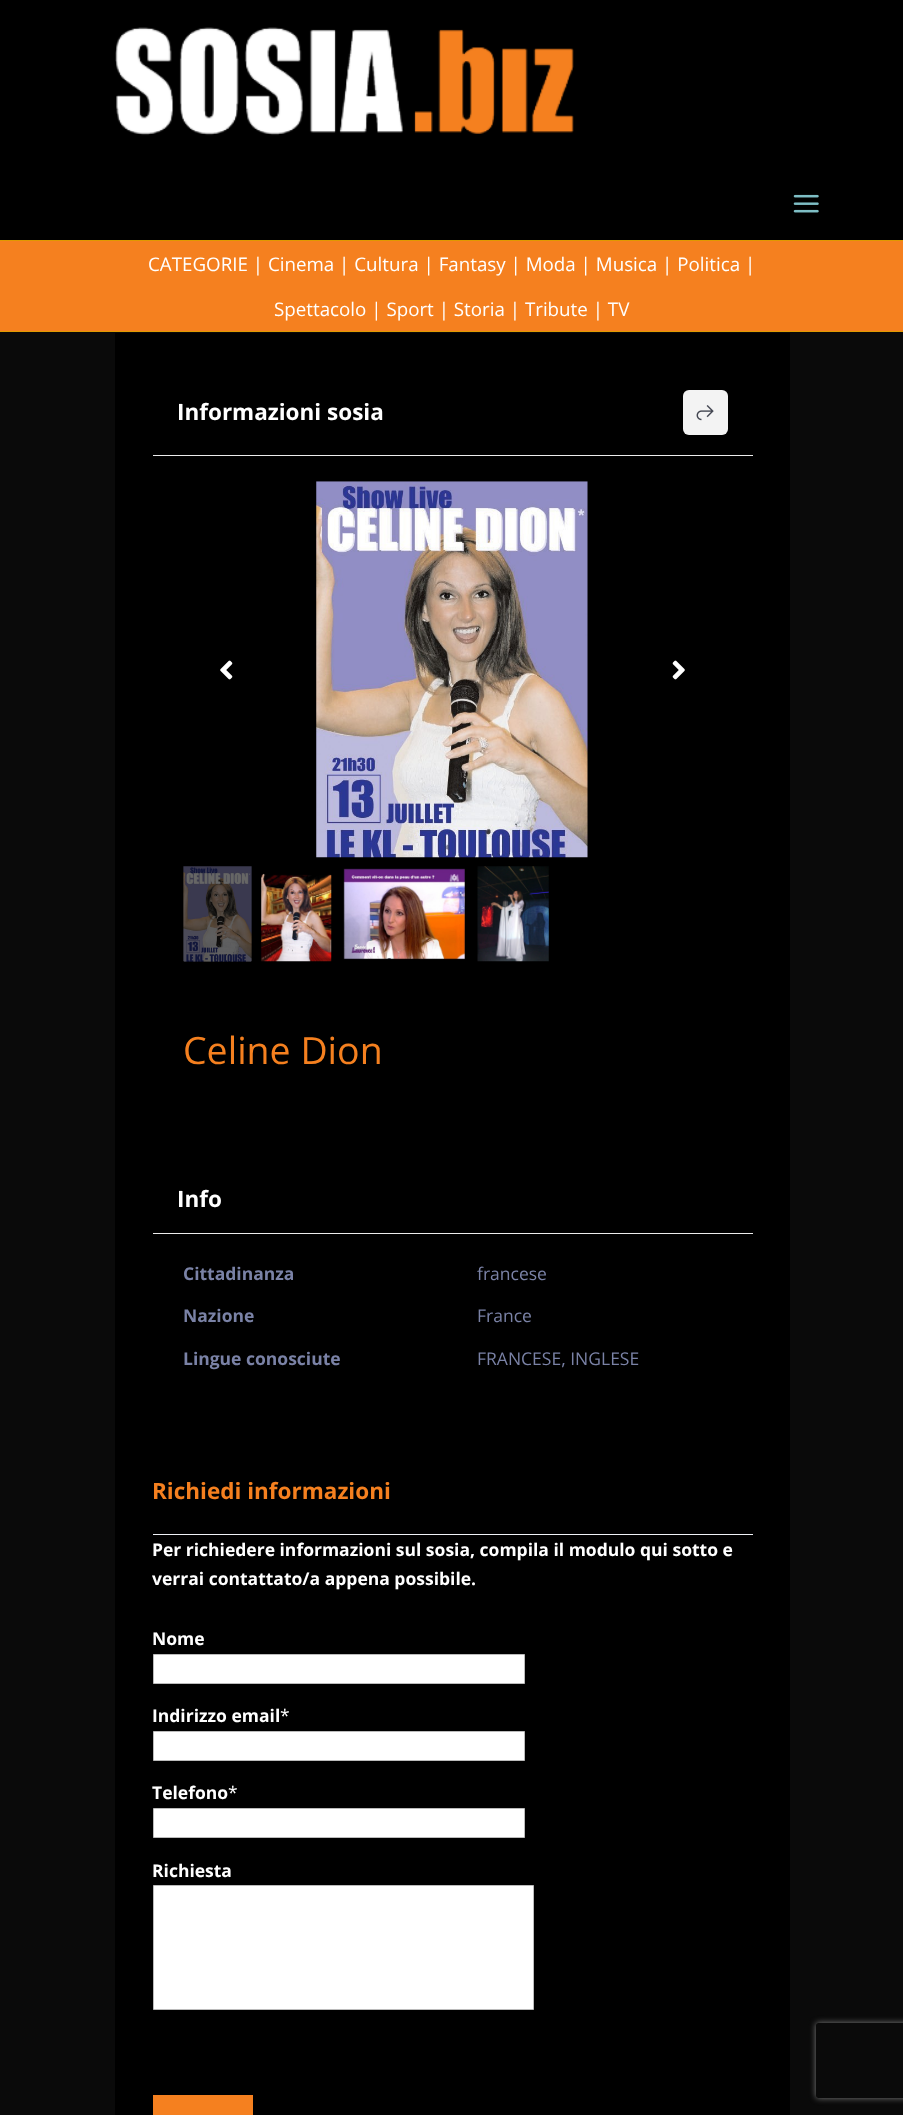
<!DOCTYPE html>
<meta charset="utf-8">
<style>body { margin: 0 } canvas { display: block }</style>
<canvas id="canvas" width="903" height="2115"></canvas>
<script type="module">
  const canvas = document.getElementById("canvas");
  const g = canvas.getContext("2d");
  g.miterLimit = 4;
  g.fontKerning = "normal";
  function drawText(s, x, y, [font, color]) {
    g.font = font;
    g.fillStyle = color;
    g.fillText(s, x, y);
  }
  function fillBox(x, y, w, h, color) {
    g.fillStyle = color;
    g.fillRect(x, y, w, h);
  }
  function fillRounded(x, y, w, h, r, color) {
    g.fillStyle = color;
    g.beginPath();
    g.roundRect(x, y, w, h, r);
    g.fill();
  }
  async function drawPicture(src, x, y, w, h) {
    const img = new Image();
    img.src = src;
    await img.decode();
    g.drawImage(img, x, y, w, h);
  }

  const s1 = ["18.75px Open Sans", "#FFFFFF"];
  const s2 = ["bold 22.5px Open Sans", "#FFFFFF"];
  const s3 = ["37.5px Open Sans", "#F5801F"];
  const s4 = ["bold 17.5px Open Sans", "#7A82A6"];
  const s5 = ["17.5px Open Sans", "#7A82A6"];
  const s6 = ["bold 22.5px Open Sans", "#F5801F"];
  const s7 = ["bold 17.5px Open Sans", "#FFFFFF"];
  const s8 = ["17.5px Open Sans", "#FFFFFF"];

  fillBox(0, 0, 903, 2115, "#0A0A0A");
  fillBox(0, 0, 903, 240, "#000000");
  fillBox(0, 240, 903, 1, "#E09900");
  await drawPicture("pic1.png", 115, 27, 459, 109);
  await drawPicture("pic2.png", 793, 194, 26, 19);
  fillBox(0, 241, 903, 90, "#F5801F");
  fillBox(0, 331, 903, 1, "#E09900");
  drawText("CATEGORIE | Cinema | Cultura | Fantasy | Moda | Musica | Politica |", 148, 271, s1);
  drawText("Spettacolo | Sport | Storia | Tribute | TV", 274, 316, s1);
  fillBox(115, 333, 675, 1782, "#000000");
  fillBox(153, 455, 600, 1, "#ECECEC");
  drawText("Informazioni sosia", 177, 420, s2);
  fillRounded(683, 390, 45, 45, 6, "#F3F3F3");
  await drawPicture("pic3.png", 696, 405, 18, 16);
  await drawPicture("pic4.png", 220, 660, 13, 20);
  await drawPicture("pic5.png", 316, 481, 272, 377);
  await drawPicture("pic6.png", 672, 660, 13, 20);
  await drawPicture("pic7.png", 183, 866, 69, 96);
  await drawPicture("pic8.png", 261, 873, 71, 89);
  await drawPicture("pic9.png", 343, 868, 122, 92);
  await drawPicture("pic10.png", 477, 866, 72, 96);
  drawText("Celine Dion", 183, 1064, s3);
  fillBox(153, 1233, 600, 1, "#ECECEC");
  drawText("Info", 177, 1207, s2);
  drawText("Cittadinanza", 183, 1280, s4);
  drawText("francese", 477, 1280, s5);
  drawText("Nazione", 183, 1322, s4);
  drawText("France", 477, 1322, s5);
  drawText("Lingue conosciute", 183, 1365, s4);
  drawText("FRANCESE, INGLESE", 477, 1365, s5);
  fillBox(153, 1534, 600, 1, "#EFF1F6");
  drawText("Richiedi informazioni", 152, 1499, s6);
  drawText("Per richiedere informazioni sul sosia, compila il modulo qui sotto e", 152, 1556, s7);
  drawText("verrai contattato/a appena possibile.", 152, 1585, s7);
  drawText("Nome", 152, 1645, s7);
  g.beginPath();
  g.rect(153.5, 1654.5, 371, 29);
  g.fill();
  g.strokeStyle = "#BBBBBB";
  g.stroke();
  drawText("Indirizzo email", 152, 1722, s7);
  drawText("*", 280, 1722, s8);
  g.beginPath();
  g.rect(153.5, 1731.5, 371, 29);
  g.fill();
  g.stroke();
  drawText("Telefono", 152, 1799, s7);
  drawText("*", 228, 1799, s8);
  g.beginPath();
  g.rect(153.5, 1808.5, 371, 29);
  g.fill();
  g.stroke();
  drawText("Richiesta", 152, 1877, s7);
  g.beginPath();
  g.rect(153.5, 1885.5, 380, 124);
  g.fill();
  g.stroke();
  fillBox(153, 2095, 100, 20, "#F5801F");
  g.save();
  g.beginPath();
  g.moveTo(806, 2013);
  g.lineTo(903, 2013);
  g.lineTo(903, 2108);
  g.lineTo(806, 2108);
  g.closePath();
  g.moveTo(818.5, 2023);
  g.lineTo(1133.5, 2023);
  g.bezierCurveTo(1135, 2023, 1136, 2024, 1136, 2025.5);
  g.lineTo(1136, 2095.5);
  g.bezierCurveTo(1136, 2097, 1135, 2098, 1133.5, 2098);
  g.lineTo(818.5, 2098);
  g.bezierCurveTo(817, 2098, 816, 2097, 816, 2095.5);
  g.lineTo(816, 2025.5);
  g.bezierCurveTo(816, 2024, 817, 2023, 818.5, 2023);
  g.closePath();
  g.clip("evenodd");
  g.fillStyle = "#808080";
  g.filter = "blur(3px)";
  g.beginPath();
  g.roundRect(816, 2023, 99, 75, 2.5);
  g.fill();
  g.filter = "none";
  g.restore();
</script>
